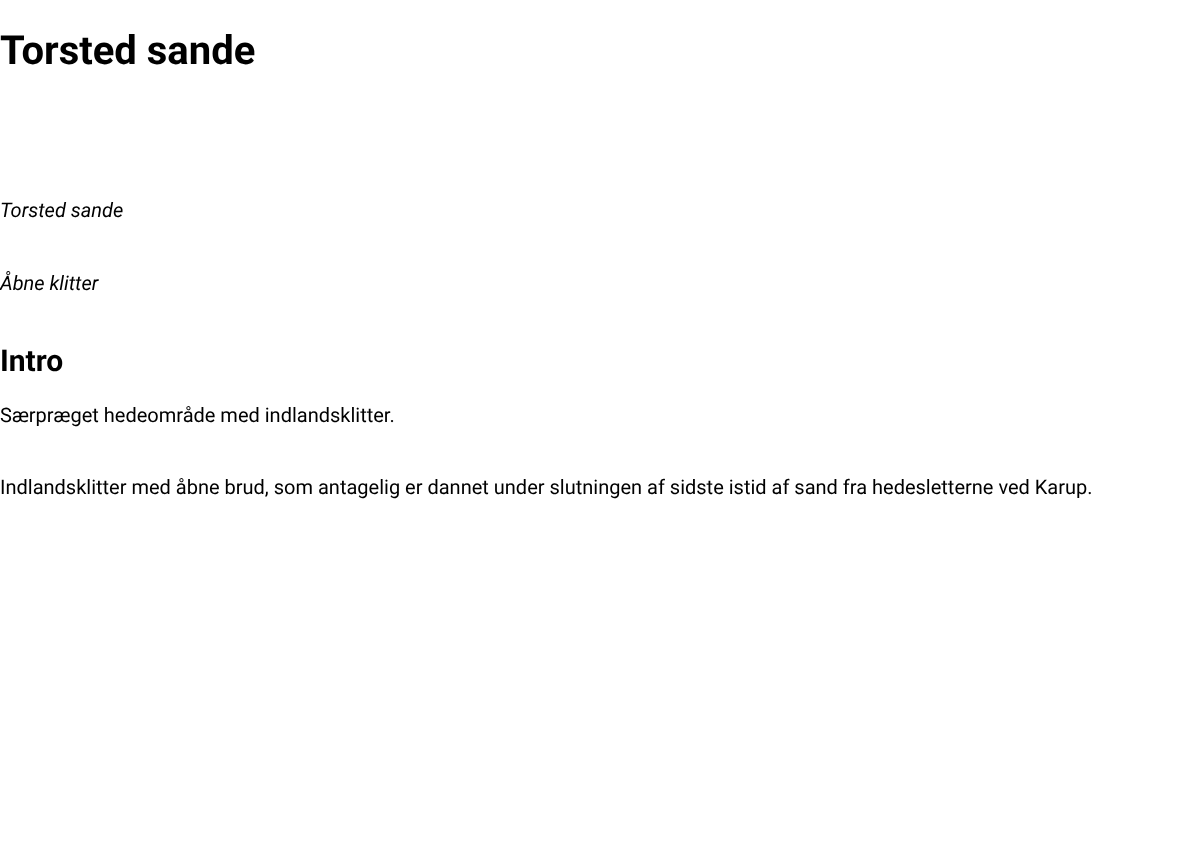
<!DOCTYPE html>
<meta charset="utf-8">
<style>body { margin: 0 } canvas { display: block }</style>
<canvas id="canvas" width="1178" height="868"></canvas>
<script type="module">
  const canvas = document.getElementById("canvas");
  const g = canvas.getContext("2d");
  g.miterLimit = 4;
  g.fontKerning = "normal";
  function drawText(s, x, y, [font, color]) {
    g.font = font;
    g.fillStyle = color;
    g.fillText(s, x, y);
  }
  function fillBox(x, y, w, h, color) {
    g.fillStyle = color;
    g.fillRect(x, y, w, h);
  }

  const s1 = ["bold 40px Roboto", "#000000"];
  const s2 = ["italic 20px Roboto", "#000000"];
  const s3 = ["bold 30px Roboto", "#000000"];
  const s4 = ["20px Roboto", "#000000"];

  fillBox(0, 0, 1178, 868, "#FFFFFF");
  drawText("Torsted sande", 0, 64, s1);
  drawText("Torsted sande", 0, 217, s2);
  drawText("Åbne klitter", 0, 290, s2);
  drawText("Intro", 0, 371, s3);
  drawText("Særpræget hedeområde med indlandsklitter.", 0, 422, s4);
  drawText("Indlandsklitter med åbne brud, som antagelig er dannet under slutningen af sidste istid af sand fra hedesletterne ved Karup.", 0, 494, s4);
</script>
